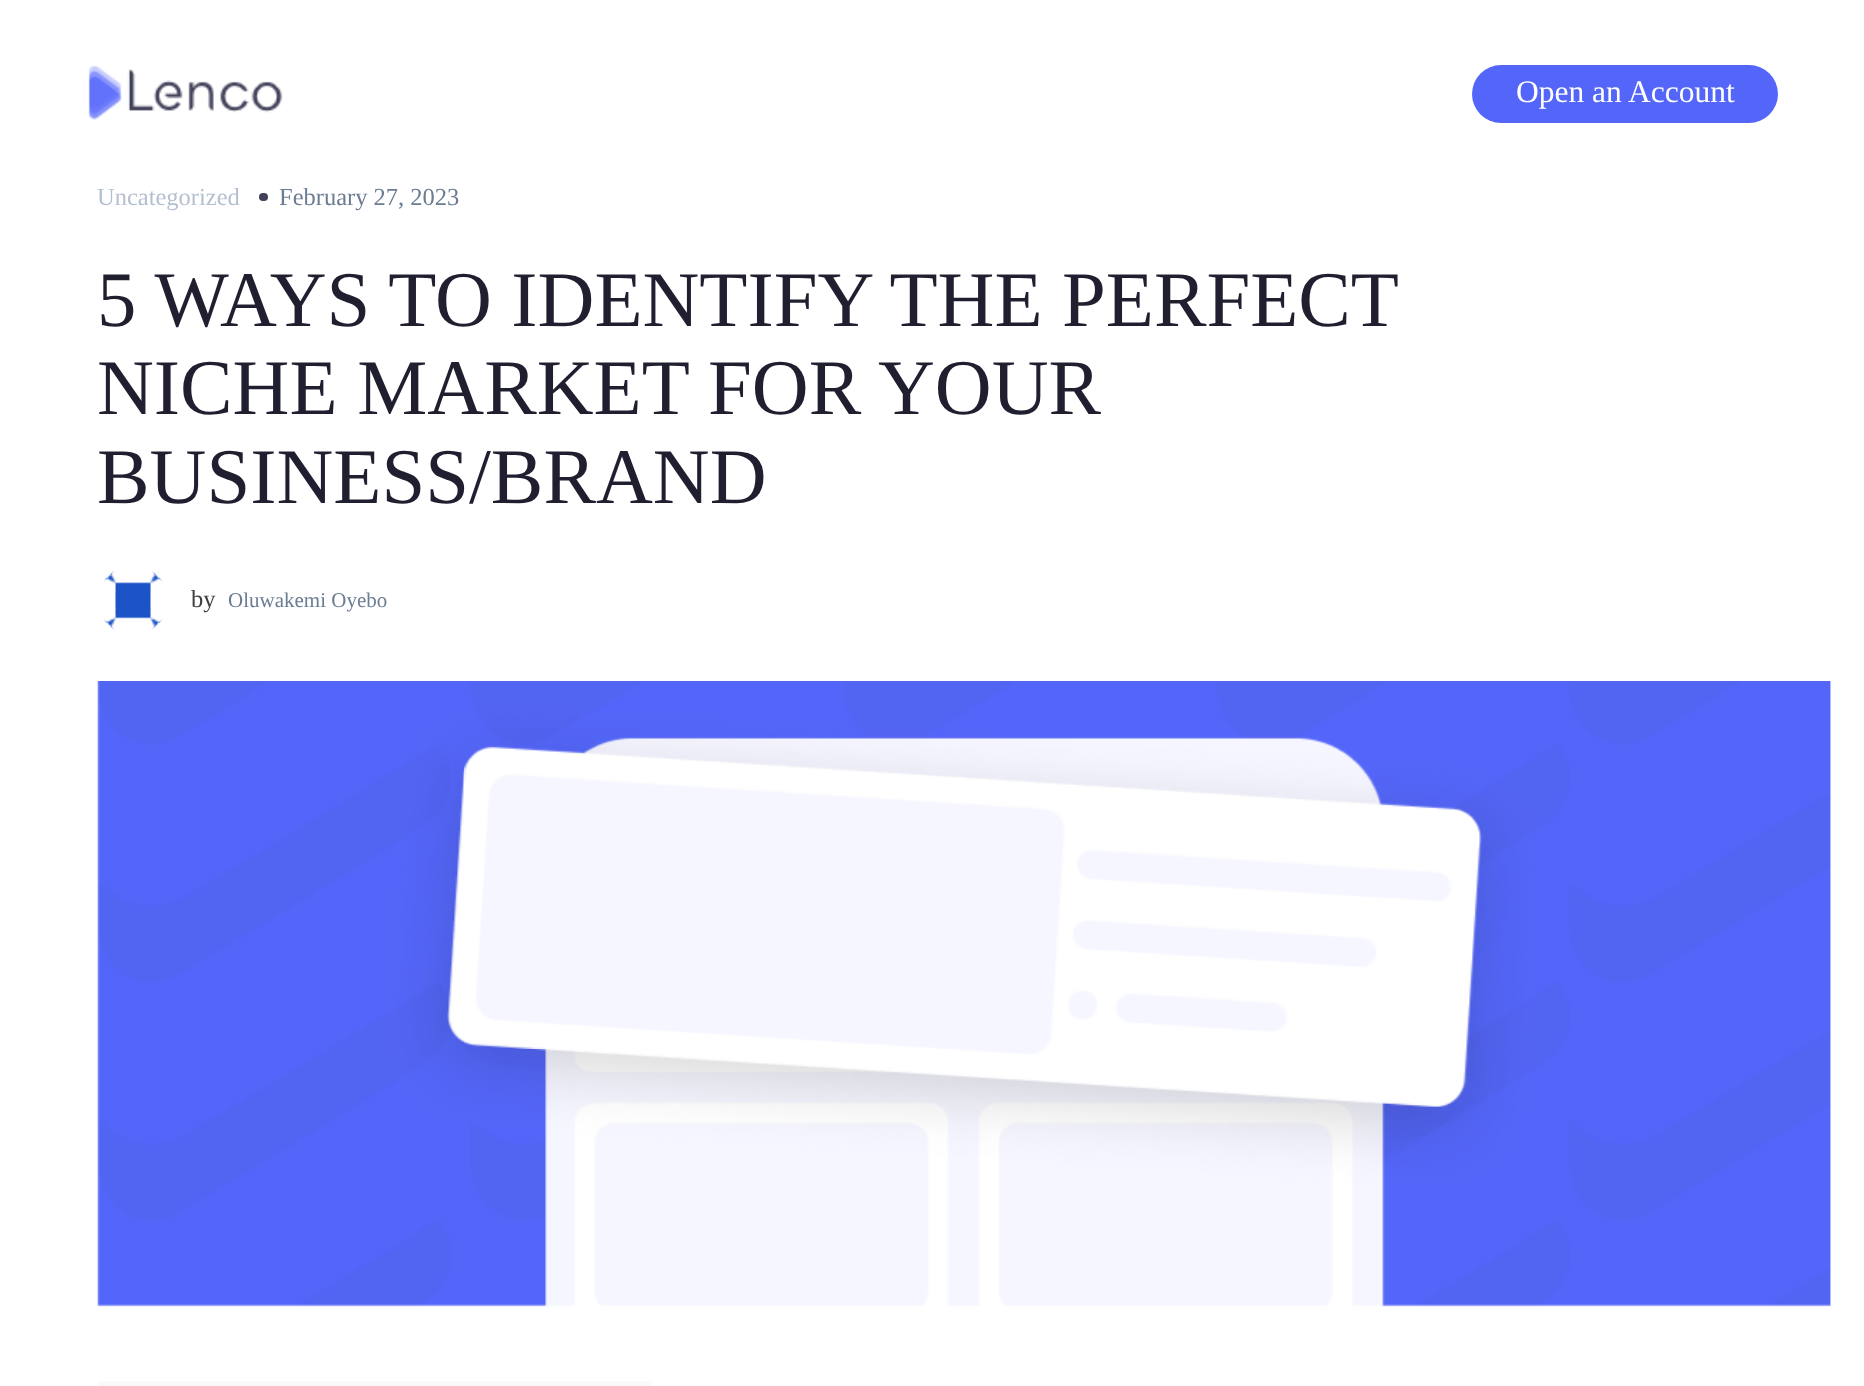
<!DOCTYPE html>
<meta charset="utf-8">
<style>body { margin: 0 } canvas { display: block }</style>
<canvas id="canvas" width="1864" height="1386"></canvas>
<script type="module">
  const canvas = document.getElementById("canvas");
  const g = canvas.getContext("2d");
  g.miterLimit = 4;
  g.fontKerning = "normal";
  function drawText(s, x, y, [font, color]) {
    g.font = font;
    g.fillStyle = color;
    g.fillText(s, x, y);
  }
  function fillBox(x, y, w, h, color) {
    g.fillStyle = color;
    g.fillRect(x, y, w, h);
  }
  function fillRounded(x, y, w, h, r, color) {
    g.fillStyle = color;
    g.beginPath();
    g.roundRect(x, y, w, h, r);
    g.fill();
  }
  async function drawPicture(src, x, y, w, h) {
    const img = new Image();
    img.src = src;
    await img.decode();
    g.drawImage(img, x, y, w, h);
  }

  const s1 = ["31.5px Liberation Serif", "#FFFFFF"];
  const s2 = ["24.5px Liberation Serif", "#B4C0D0"];
  const s3 = ["24.5px Liberation Serif", "#6B7C93"];
  const s4 = ["78.75px Liberation Serif", "#1F1F30"];
  const s5 = ["24.5px Liberation Serif", "#3D3D3D"];
  const s6 = ["21px Liberation Serif", "#6B7C93"];

  fillBox(0, 0, 1864, 1386, "#FFFFFF");
  await drawPicture("pic1.png", 88, 65, 195, 55);
  fillRounded(1472, 65, 306, 58, 29, "#5466F9");
  drawText("Open an Account", 1516, 102, s1);
  drawText("Uncategorized", 97, 205, s2);
  fillRounded(259, 193, 9, 8, 4, "#41415A");
  drawText("February 27, 2023", 279, 205, s3);
  g.wordSpacing = "-0.25px";
  drawText("5 WAYS TO IDENTIFY THE PERFECT", 97, 326, s4);
  g.wordSpacing = "0px";
  drawText("NICHE MARKET FOR YOUR", 97, 414, s4);
  drawText("BUSINESS/BRAND", 97, 503, s4);
  await drawPicture("pic2.png", 103, 571, 60, 59);
  drawText("by", 191, 607, s5);
  drawText("Oluwakemi Oyebo", 228, 607, s6);
  await drawPicture("pic3.png", 97, 681, 1734, 626);
  fillBox(98, 1381, 553, 5, "#FAFAFA");
</script>
